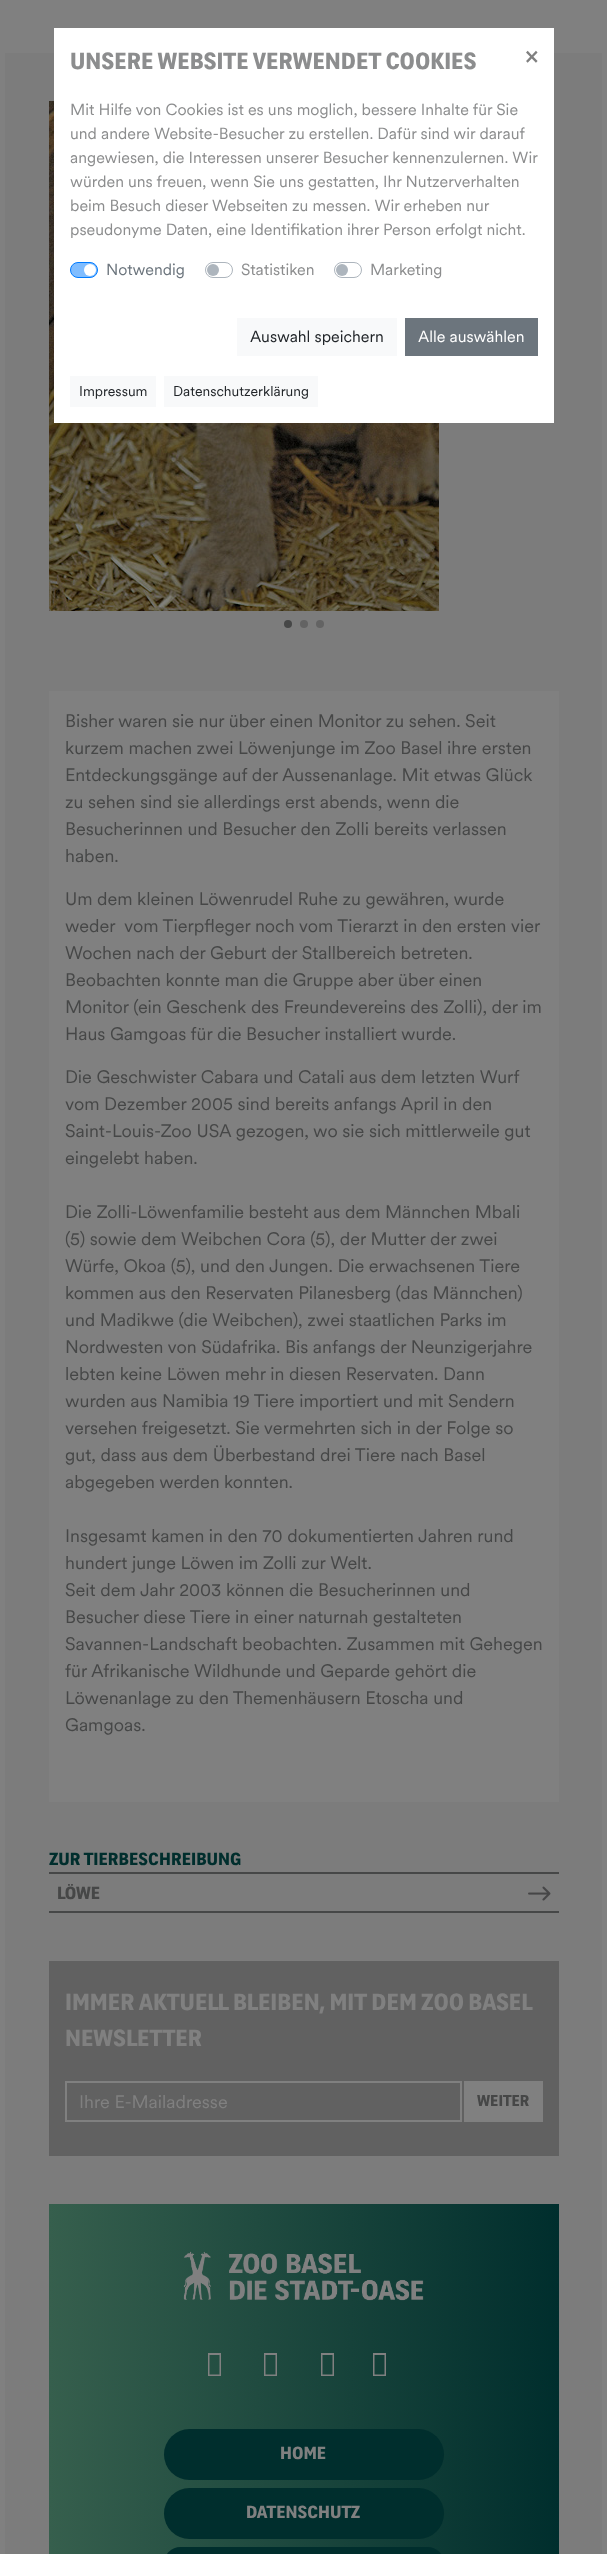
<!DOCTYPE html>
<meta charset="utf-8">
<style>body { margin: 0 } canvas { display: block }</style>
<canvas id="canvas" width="607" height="2554"></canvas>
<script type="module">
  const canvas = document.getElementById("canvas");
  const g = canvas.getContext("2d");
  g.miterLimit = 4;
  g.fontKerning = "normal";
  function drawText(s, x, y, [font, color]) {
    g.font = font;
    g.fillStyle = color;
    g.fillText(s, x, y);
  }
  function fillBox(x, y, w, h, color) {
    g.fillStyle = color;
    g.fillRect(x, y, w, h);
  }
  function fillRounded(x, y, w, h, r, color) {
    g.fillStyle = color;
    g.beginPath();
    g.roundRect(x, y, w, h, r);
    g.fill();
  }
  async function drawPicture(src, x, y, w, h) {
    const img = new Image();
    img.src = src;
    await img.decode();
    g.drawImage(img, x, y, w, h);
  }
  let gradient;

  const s1 = ["bold 24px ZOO", "#8C8D8E"];
  const s2 = ["bold 24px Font", "#808080"];
  const s3 = ["16px Font", "#8C8D8E"];
  const s4 = ["16px Font", "#6C757D"];
  const s5 = ["16px Font", "#212529"];
  const s6 = ["16px Font", "#FFFFFF"];
  const s7 = ["14px Font", "#212529"];
  const s8 = ["18px Font", "#464747"];
  const s9 = ["bold 18px ZOO", "#002E2D"];
  const s10 = ["bold 18px ZOO", "#464747"];
  const s11 = ["bold 24px ZOO", "#808080"];
  const s12 = ["18px Font", "#808080"];
  const s13 = ["bold 16px ZOO", "#464747"];
  const s14 = ["bold 18px ZOO", "#808080"];

  fillBox(0, 0, 607, 2554, "#808080");
  fillBox(5, 53, 597, 2501, "#7C7C7C");
  await drawPicture("pic1.png", 49, 101, 390, 510);
  fillBox(54, 28, 500, 395, "#FFFFFF");
  drawText("UNSERE WEBSITE VERWENDET COOKIES", 70, 69, s1);
  drawText("×", 525, 64, s2);
  drawText("Mit Hilfe von Cookies ist es uns moglich, bessere Inhalte für Sie", 70, 115, s3);
  drawText("und andere Website-Besucher zu erstellen. Dafür sind wir darauf", 70, 139, s3);
  drawText("angewiesen, die Interessen unserer Besucher kennenzulernen. Wir", 70, 163, s3);
  drawText("würden uns freuen, wenn Sie uns gestatten, Ihr Nutzerverhalten", 70, 187, s3);
  drawText("beim Besuch dieser Webseiten zu messen. Wir erheben nur", 70, 211, s3);
  drawText("pseudonyme Daten, eine Identifikation ihrer Person erfolgt nicht.", 70, 235, s3);
  g.fillStyle = "#80BDFF";
  g.beginPath();
  g.roundRect(70.5, 262.5, 27, 15, 7.5);
  g.fill();
  g.strokeStyle = "#007BFF";
  g.stroke();
  drawText("Notwendig", 106, 275, s4);
  g.fillStyle = "#FFFFFF";
  g.beginPath();
  g.arc(90, 270, 6, 0, Math.PI * 2);
  g.fill();
  g.beginPath();
  g.roundRect(205.5, 262.5, 27, 15, 7.5);
  g.strokeStyle = "#ADB5BD";
  g.stroke();
  drawText("Statistiken", 241, 275, s3);
  g.fillStyle = "#ADB5BD";
  g.beginPath();
  g.arc(213, 270, 6, 0, Math.PI * 2);
  g.fill();
  g.beginPath();
  g.roundRect(334.5, 262.5, 27, 15, 7.5);
  g.stroke();
  drawText("Marketing", 370, 275, s3);
  g.fillStyle = "#ADB5BD";
  g.beginPath();
  g.arc(342, 270, 6, 0, Math.PI * 2);
  g.fill();
  fillBox(237, 318, 160, 38, "#F8F9FA");
  drawText("Auswahl speichern", 250, 342, s5);
  fillBox(405, 318, 133, 38, "#6C757D");
  drawText("Alle auswählen", 418, 342, s6);
  fillBox(70, 376, 86, 31, "#F8F9FA");
  drawText("Impressum", 79, 396, s7);
  fillBox(164, 376, 154, 31, "#F8F9FA");
  drawText("Datenschutzerklärung", 173, 396, s7);
  g.fillStyle = "#464747";
  g.beginPath();
  g.arc(288, 624, 4, 0, Math.PI * 2);
  g.fill();
  g.fillStyle = "#636363";
  g.beginPath();
  g.arc(304, 624, 4, 0, Math.PI * 2);
  g.fill();
  g.beginPath();
  g.arc(320, 624, 4, 0, Math.PI * 2);
  g.fill();
  fillBox(49, 691, 510, 1111, "#808080");
  drawText("Bisher waren sie nur über einen Monitor zu sehen. Seit", 65, 727, s8);
  drawText("kurzem machen zwei Löwenjunge im Zoo Basel ihre ersten", 65, 754, s8);
  drawText("Entdeckungsgänge auf der Aussenanlage. Mit etwas Glück", 65, 781, s8);
  drawText("zu sehen sind sie allerdings erst abends, wenn die", 65, 808, s8);
  drawText("Besucherinnen und Besucher den Zolli bereits verlassen", 65, 835, s8);
  drawText("haben.", 65, 862, s8);
  drawText("Um dem kleinen Löwenrudel Ruhe zu gewähren, wurde", 65, 905, s8);
  drawText("weder  vom Tierpfleger noch vom Tierarzt in den ersten vier", 65, 932, s8);
  drawText("Wochen nach der Geburt der Stallbereich betreten.", 65, 959, s8);
  drawText("Beobachten konnte man die Gruppe aber über einen", 65, 986, s8);
  drawText("Monitor (ein Geschenk des Freundevereins des Zolli), der im", 65, 1013, s8);
  drawText("Haus Gamgoas für die Besucher installiert wurde.", 65, 1040, s8);
  drawText("Die Geschwister Cabara und Catali aus dem letzten Wurf", 65, 1083, s8);
  drawText("vom Dezember 2005 sind bereits anfangs April in den", 65, 1110, s8);
  drawText("Saint-Louis-Zoo USA gezogen, wo sie sich mittlerweile gut", 65, 1137, s8);
  drawText("eingelebt haben.", 65, 1164, s8);
  drawText("Die Zolli-Löwenfamilie besteht aus dem Männchen Mbali", 65, 1218, s8);
  drawText("(5) sowie dem Weibchen Cora (5), der Mutter der zwei", 65, 1245, s8);
  drawText("Würfe, Okoa (5), und den Jungen. Die erwachsenen Tiere", 65, 1272, s8);
  drawText("kommen aus den Reservaten Pilanesberg (das Männchen)", 65, 1299, s8);
  drawText("und Madikwe (die Weibchen), zwei staatlichen Parks im", 65, 1326, s8);
  drawText("Nordwesten von Südafrika. Bis anfangs der Neunzigerjahre", 65, 1353, s8);
  drawText("lebten keine Löwen mehr in diesen Reservaten. Dann", 65, 1380, s8);
  drawText("wurden aus Namibia 19 Tiere importiert und mit Sendern", 65, 1407, s8);
  drawText("versehen freigesetzt. Sie vermehrten sich in der Folge so", 65, 1434, s8);
  drawText("gut, dass aus dem Überbestand drei Tiere nach Basel", 65, 1461, s8);
  drawText("abgegeben werden konnten.", 65, 1488, s8);
  drawText("Insgesamt kamen in den 70 dokumentierten Jahren rund", 65, 1542, s8);
  drawText("hundert junge Löwen im Zolli zur Welt.", 65, 1569, s8);
  drawText("Seit dem Jahr 2003 können die Besucherinnen und", 65, 1596, s8);
  drawText("Besucher diese Tiere in einer naturnah gestalteten", 65, 1623, s8);
  drawText("Savannen-Landschaft beobachten. Zusammen mit Gehegen", 65, 1650, s8);
  drawText("für Afrikanische Wildhunde und Geparde gehört die", 65, 1677, s8);
  drawText("Löwenanlage zu den Themenhäusern Etoscha und", 65, 1704, s8);
  drawText("Gamgoas.", 65, 1731, s8);
  drawText("ZUR TIERBESCHREIBUNG", 49, 1865, s9);
  fillBox(49, 1872, 510, 2, "#464747");
  fillBox(49, 1911, 510, 2, "#464747");
  drawText("LÖWE", 57, 1899, s10);
  await drawPicture("pic2.png", 528, 1886, 23, 15);
  fillBox(49, 1961, 510, 195, "#616161");
  drawText("IMMER AKTUELL BLEIBEN, MIT DEM ZOO BASEL", 65, 2010, s11);
  drawText("NEWSLETTER", 65, 2046, s11);
  g.strokeStyle = "#808080";
  g.lineWidth = 2;
  g.strokeRect(66, 2082, 395, 39);
  drawText("Ihre E-Mailadresse", 79, 2108, s12);
  fillBox(464, 2081, 79, 41, "#808080");
  drawText("WEITER", 477, 2106, s13);
  gradient = g.createLinearGradient(49, 2317, 559, 2317);
  gradient.addColorStop(0, "#365F4D");
  gradient.addColorStop(1, "#002E2D");
  g.fillStyle = gradient;
  g.fillRect(49, 2204, 510, 225);
  await drawPicture("pic3.png", 183, 2251, 241, 50);
  g.fillStyle = "#808080";
  g.beginPath();
  g.moveTo(208, 2376);
  g.lineTo(208, 2353);
  g.lineTo(221, 2353);
  g.lineTo(221, 2376);
  g.closePath();
  g.moveTo(209.5, 2374.5);
  g.lineTo(219.5, 2374.5);
  g.lineTo(219.5, 2355);
  g.lineTo(209.5, 2355);
  g.closePath();
  g.fill();
  g.beginPath();
  g.moveTo(264, 2376);
  g.lineTo(264, 2353);
  g.lineTo(277, 2353);
  g.lineTo(277, 2376);
  g.closePath();
  g.moveTo(265.5, 2374.5);
  g.lineTo(275.5, 2374.5);
  g.lineTo(275.5, 2355);
  g.lineTo(265.5, 2355);
  g.closePath();
  g.fill();
  g.beginPath();
  g.moveTo(321, 2376);
  g.lineTo(321, 2353);
  g.lineTo(334, 2353);
  g.lineTo(334, 2376);
  g.closePath();
  g.moveTo(322.5, 2374.5);
  g.lineTo(332.5, 2374.5);
  g.lineTo(332.5, 2355);
  g.lineTo(322.5, 2355);
  g.closePath();
  g.fill();
  g.beginPath();
  g.moveTo(373, 2376);
  g.lineTo(373, 2353);
  g.lineTo(386, 2353);
  g.lineTo(386, 2376);
  g.closePath();
  g.moveTo(374.5, 2374.5);
  g.lineTo(384.5, 2374.5);
  g.lineTo(384.5, 2355);
  g.lineTo(374.5, 2355);
  g.closePath();
  g.fill();
  gradient = g.createLinearGradient(49, 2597, 559, 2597);
  gradient.addColorStop(0, "#365F4D");
  gradient.addColorStop(1, "#002E2D");
  g.fillStyle = gradient;
  g.fillRect(49, 2429, 510, 125);
  fillRounded(164, 2429, 280, 51, 25.5, "#002E2D");
  drawText("HOME", 280, 2459, s14);
  fillRounded(164, 2488, 280, 51, 25.5, "#002E2D");
  drawText("DATENSCHUTZ", 246, 2518, s14);
  fillRounded(164, 2547, 280, 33, 25.5, "#002E2D");
</script>
